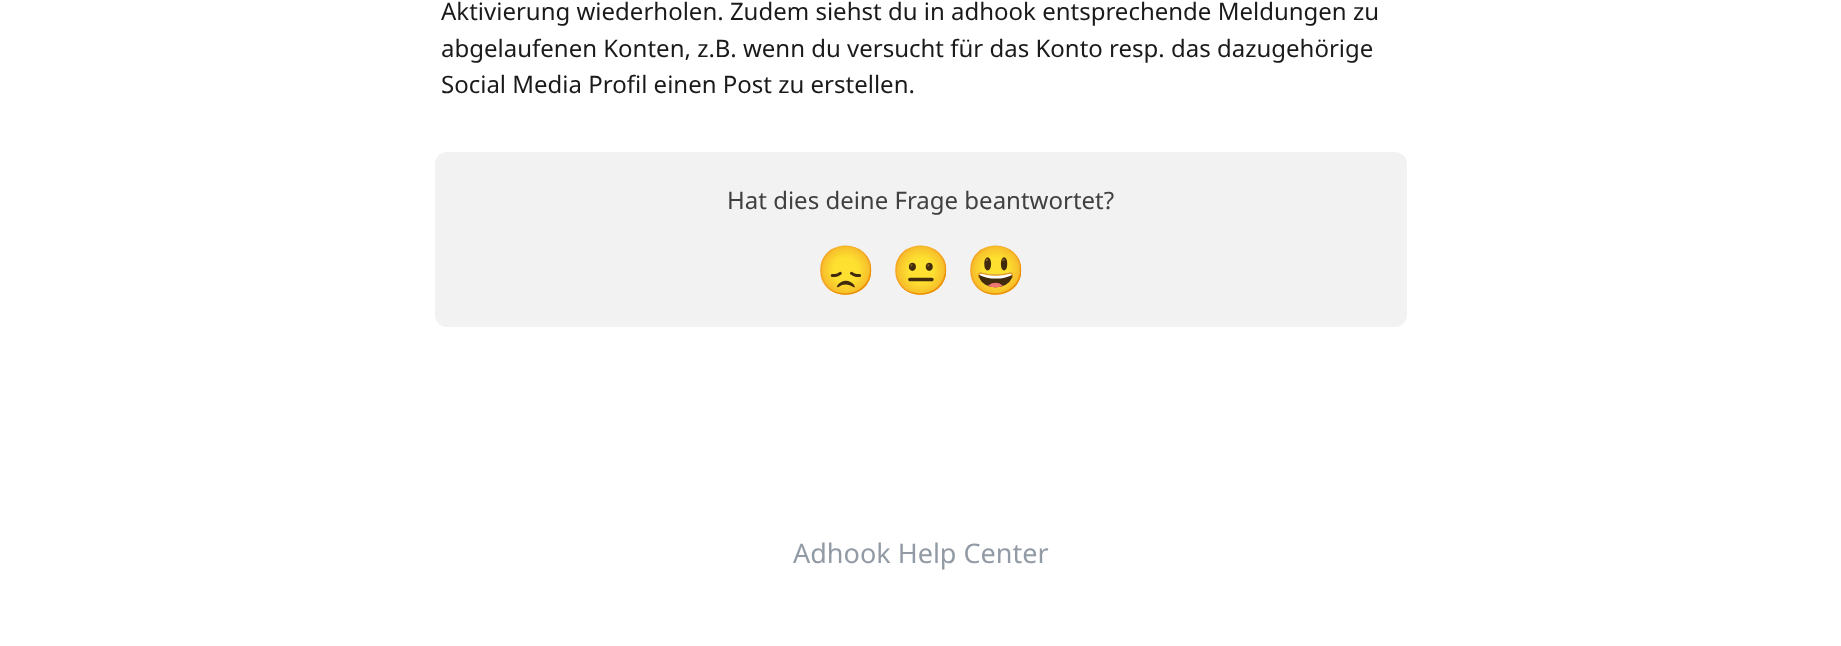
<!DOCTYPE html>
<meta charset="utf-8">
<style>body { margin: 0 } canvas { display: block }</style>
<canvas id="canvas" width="1841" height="646"></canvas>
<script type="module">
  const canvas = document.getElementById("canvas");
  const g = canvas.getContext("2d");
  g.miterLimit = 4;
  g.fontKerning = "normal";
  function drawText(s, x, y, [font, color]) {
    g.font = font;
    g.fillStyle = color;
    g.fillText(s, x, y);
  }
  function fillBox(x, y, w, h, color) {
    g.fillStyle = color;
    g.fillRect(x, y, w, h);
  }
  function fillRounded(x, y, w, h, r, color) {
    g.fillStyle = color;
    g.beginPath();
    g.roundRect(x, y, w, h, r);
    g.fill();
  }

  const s1 = ["24px Noto Sans", "#1A1A1A"];
  const s2 = ["24px Noto Sans", "#404040"];
  const s3 = ["48px Noto Color Emoji", "#404040"];
  const s4 = ["27px Noto Sans", "#929BA5"];

  fillBox(0, 0, 1841, 646, "#FFFFFF");
  drawText("Aktivierung wiederholen. Zudem siehst du in adhook entsprechende Meldungen zu", 441, 20, s1);
  drawText("abgelaufenen Konten, z.B. wenn du versucht für das Konto resp. das dazugehörige", 441, 57, s1);
  drawText("Social Media Profil einen Post zu erstellen.", 441, 93, s1);
  fillRounded(435, 152, 972, 175, 12, "#F2F2F2");
  drawText("Hat dies deine Frage beantwortet?", 727, 209, s2);
  drawText("😞", 816, 287, s3);
  drawText("😐", 891, 287, s3);
  drawText("😃", 966, 287, s3);
  drawText("Adhook Help Center", 793, 563, s4);
</script>
